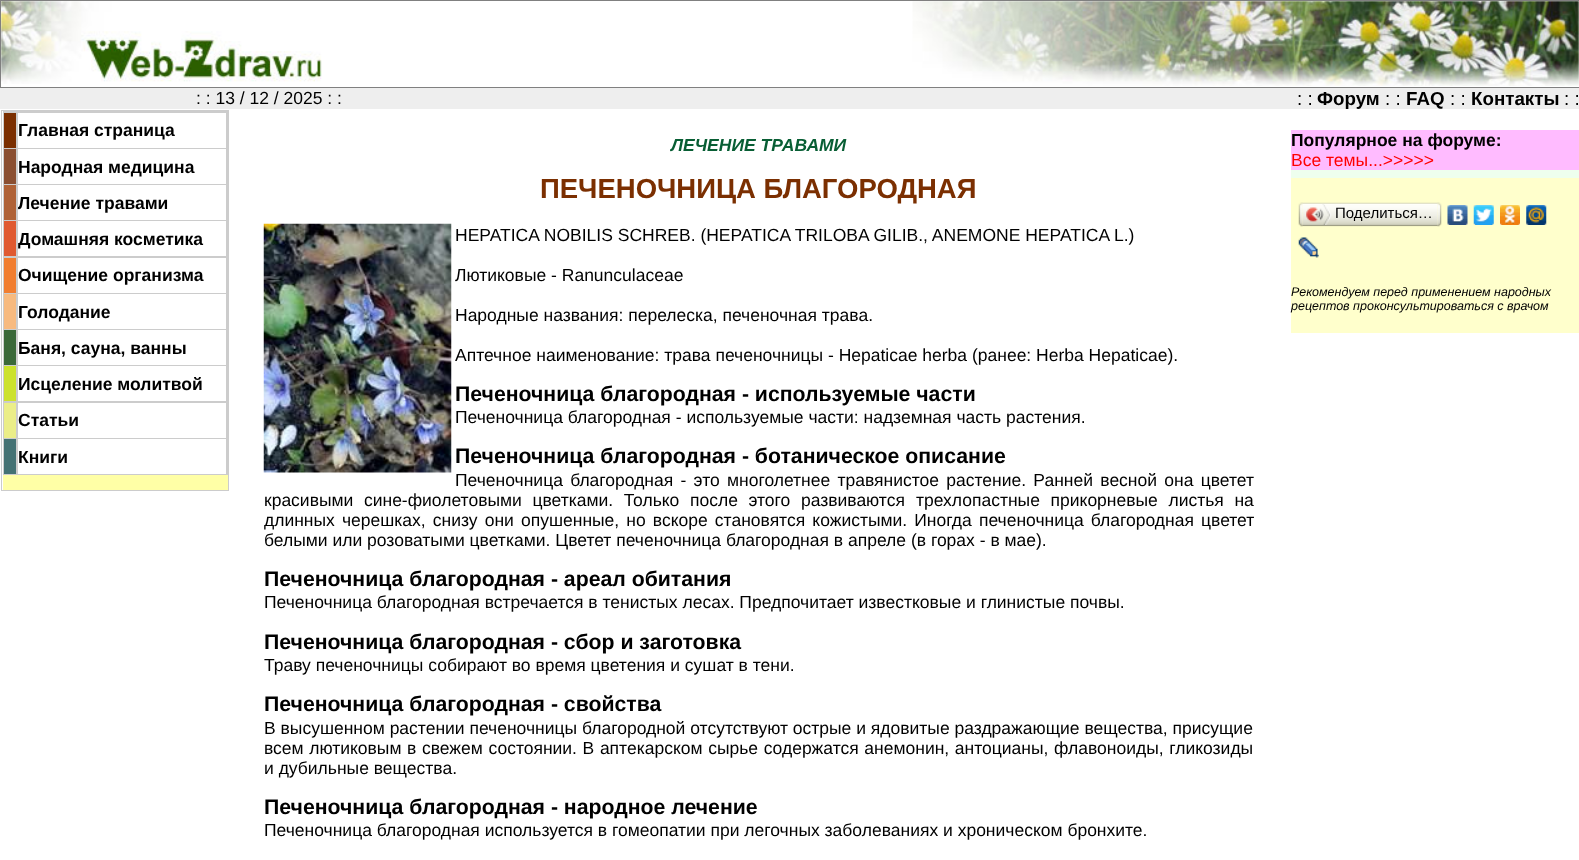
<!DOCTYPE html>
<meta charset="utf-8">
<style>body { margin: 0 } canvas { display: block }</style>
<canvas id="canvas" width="1579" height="860"></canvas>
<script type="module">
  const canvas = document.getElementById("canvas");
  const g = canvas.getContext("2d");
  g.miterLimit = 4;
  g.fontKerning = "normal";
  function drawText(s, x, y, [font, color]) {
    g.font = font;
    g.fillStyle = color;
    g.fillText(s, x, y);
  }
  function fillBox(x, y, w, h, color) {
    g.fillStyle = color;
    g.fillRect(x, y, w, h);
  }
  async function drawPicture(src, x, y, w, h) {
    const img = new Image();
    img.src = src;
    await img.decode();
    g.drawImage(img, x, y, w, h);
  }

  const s1 = ["17.5px Liberation Sans", "#000000"];
  const s2 = ["18.75px Liberation Sans", "#000000"];
  const s3 = ["bold 18.75px Liberation Sans", "#000000"];
  const s4 = ["bold 17.5px Liberation Sans", "#000000"];
  const s5 = ["italic bold 17.5px Liberation Sans", "#085E34"];
  const s6 = ["bold 27.5px Liberation Sans", "#7B2F01"];
  const s7 = ["bold 21.25px Liberation Sans", "#000000"];
  const s8 = ["17.5px Liberation Sans", "#FF0000"];
  const s9 = ["15px Liberation Sans", "#000000"];
  const s10 = ["italic 12.5px Liberation Sans", "#000000"];

  fillBox(0, 0, 1579, 860, "#FFFFFF");
  g.strokeStyle = "#808080";
  g.strokeRect(0.5, 0.5, 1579, 87);
  await drawPicture("pic1.png", 1, 1, 321, 83);
  await drawPicture("pic2.png", 912, 1, 667, 85);
  fillBox(0, 88, 1579, 21, "#EEEEEE");
  drawText(": : 13 / 12 / 2025 : :", 196, 104, s1);
  drawText(": :", 1297, 105, s2);
  drawText("Форум", 1317, 105, s3);
  drawText(": :", 1385, 105, s2);
  drawText("FAQ", 1406, 105, s3);
  drawText(": :", 1450, 105, s2);
  drawText("Контакты", 1471, 105, s3);
  drawText(": :", 1564, 105, s2);
  g.strokeStyle = "#CCCCCC";
  g.strokeRect(1.5, 110.5, 227, 380);
  fillBox(3, 111, 225, 364, "#CCCCCC");
  fillBox(4, 113, 12, 35, "#7B2F01");
  fillBox(18, 113, 208, 35, "#FFFFFF");
  drawText("Главная страница", 18, 136, s4);
  fillBox(4, 149, 12, 35, "#8B4F31");
  fillBox(18, 149, 208, 35, "#FFFFFF");
  drawText("Народная медицина", 18, 173, s4);
  fillBox(4, 185, 12, 35, "#B06236");
  fillBox(18, 185, 208, 35, "#FFFFFF");
  drawText("Лечение травами", 18, 209, s4);
  fillBox(4, 221, 12, 35, "#E05A31");
  fillBox(18, 221, 208, 35, "#FFFFFF");
  drawText("Домашняя косметика", 18, 245, s4);
  fillBox(4, 258, 12, 35, "#F17E30");
  fillBox(18, 258, 208, 35, "#FFFFFF");
  drawText("Очищение организма", 18, 281, s4);
  fillBox(4, 294, 12, 35, "#F7BA7F");
  fillBox(18, 294, 208, 35, "#FFFFFF");
  drawText("Голодание", 18, 318, s4);
  fillBox(4, 330, 12, 35, "#3B6939");
  fillBox(18, 330, 208, 35, "#FFFFFF");
  drawText("Баня, сауна, ванны", 18, 354, s4);
  fillBox(4, 366, 12, 35, "#CCE22D");
  fillBox(18, 366, 208, 35, "#FFFFFF");
  drawText("Исцеление молитвой", 18, 390, s4);
  fillBox(4, 403, 12, 35, "#EBEE88");
  fillBox(18, 403, 208, 35, "#FFFFFF");
  drawText("Статьи", 18, 426, s4);
  fillBox(4, 439, 12, 35, "#447274");
  fillBox(18, 439, 208, 35, "#FFFFFF");
  drawText("Книги", 18, 463, s4);
  fillBox(3, 475, 225, 15, "#FFFFA6");
  drawText("ЛЕЧЕНИЕ ТРАВАМИ", 671, 151, s5);
  drawText("ПЕЧЕНОЧНИЦА БЛАГОРОДНАЯ", 540, 198, s6);
  await drawPicture("pic3.png", 263, 223, 189, 250);
  drawText("HEPATICA NOBILIS SCHREB. (НEPATICA TRILOBA GILIB., ANEMONE HEPATICA L.)", 455, 241, s1);
  drawText("Лютиковые - Ranunculaceae", 455, 281, s1);
  drawText("Народные названия: перелеска, печеночная трава.", 455, 321, s1);
  drawText("Аптечное наименование: трава печеночницы - Hepaticae herba (ранее: Неrbа Hepaticae).", 455, 361, s1);
  drawText("Печеночница благородная - используемые части", 455, 401, s7);
  drawText("Печеночница благородная - используемые части: надземная часть растения.", 455, 423, s1);
  drawText("Печеночница благородная - ботаническое описание", 455, 463, s7);
  g.wordSpacing = "2.4px";
  drawText("Печеночница благородная - это многолетнее травянистое растение. Ранней весной она цветет", 455, 486, s1);
  g.wordSpacing = "5.75px";
  drawText("красивыми сине-фиолетовыми цветками. Только после этого развиваются", 264, 506, s1);
  drawText("трехлопастные прикорневые листья на", 916, 506, s1);
  g.wordSpacing = "2.25px";
  drawText("длинных черешках, снизу они опушенные, но вскоре становятся кожистыми. Иногда печеночница благородная цветет", 264, 526, s1);
  g.wordSpacing = "0px";
  drawText("белыми или розоватыми цветками. Цветет печеночница благородная в апреле (в горах - в мае).", 264, 546, s1);
  drawText("Печеночница благородная - ареал обитания", 264, 586, s7);
  drawText("Печеночница благородная встречается в тенистых лесах. Предпочитает известковые и глинистые почвы.", 264, 608, s1);
  drawText("Печеночница благородная - сбор и заготовка", 264, 649, s7);
  drawText("Траву печеночницы собирают во время цветения и сушат в тени.", 264, 671, s1);
  drawText("Печеночница благородная - свойства", 264, 711, s7);
  drawText("В высушенном растении печеночницы благородной отсутствуют острые и ядовитые раздражающие вещества, присущие", 264, 734, s1);
  g.wordSpacing = "0.75px";
  drawText("всем лютиковым в свежем состоянии. В аптекарском сырье содержатся анемонин, антоцианы, флавоноиды, гликозиды", 264, 754, s1);
  g.wordSpacing = "0px";
  drawText("и дубильные вещества.", 264, 774, s1);
  drawText("Печеночница благородная - народное лечение", 264, 814, s7);
  drawText("Печеночница благородная используется в гомеопатии при легочных заболеваниях и хроническом бронхите.", 264, 836, s1);
  fillBox(1291, 130, 288, 40, "#FFBBFF");
  drawText("Популярное на форуме:", 1291, 146, s4);
  drawText("Все темы...>>>>>", 1291, 166, s8);
  fillBox(1291, 170, 288, 8, "#EEFFEE");
  fillBox(1291, 178, 288, 155, "#FFFFCC");
  await drawPicture("pic4.png", 1302, 202, 136, 25);
  await drawPicture("pic5.png", 1298, 202, 5, 25);
  await drawPicture("pic6.png", 1306, 204, 26, 21);
  drawText("Поделиться…", 1335, 218, s9);
  await drawPicture("pic7.png", 1437, 202, 5, 25);
  await drawPicture("pic8.png", 1447, 205, 21, 20);
  await drawPicture("pic9.png", 1473, 205, 21, 20);
  await drawPicture("pic10.png", 1500, 205, 20, 20);
  await drawPicture("pic11.png", 1526, 205, 21, 20);
  await drawPicture("pic12.png", 1298, 237, 21, 21);
  drawText("Рекомендуем перед применением народных", 1291, 296, s10);
  drawText("рецептов проконсультироваться с врачом", 1291, 310, s10);
</script>
